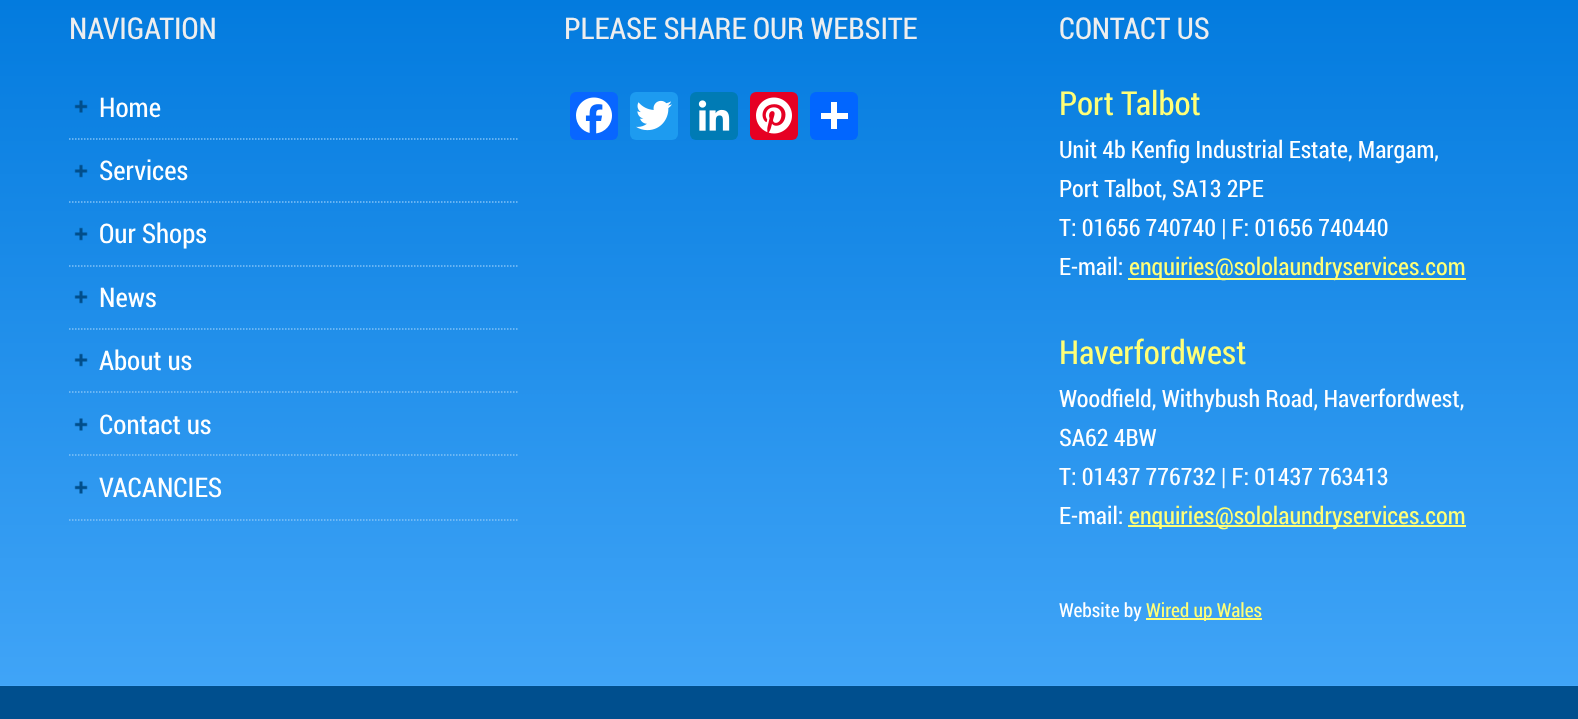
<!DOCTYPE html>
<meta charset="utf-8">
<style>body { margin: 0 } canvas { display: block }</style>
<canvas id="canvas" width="1578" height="719"></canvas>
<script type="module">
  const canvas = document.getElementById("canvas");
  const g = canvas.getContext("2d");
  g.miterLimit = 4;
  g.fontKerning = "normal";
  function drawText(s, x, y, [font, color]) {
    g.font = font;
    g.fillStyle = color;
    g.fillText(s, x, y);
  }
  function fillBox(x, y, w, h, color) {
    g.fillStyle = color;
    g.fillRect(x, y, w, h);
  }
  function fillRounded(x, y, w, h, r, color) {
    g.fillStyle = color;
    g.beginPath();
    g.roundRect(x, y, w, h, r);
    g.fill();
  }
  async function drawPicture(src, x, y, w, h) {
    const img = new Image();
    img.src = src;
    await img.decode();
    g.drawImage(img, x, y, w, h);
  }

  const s1 = ["30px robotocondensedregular", "#EEEEEE"];
  const s2 = ["27px robotocondensedregular", "#FFFFFF"];
  const s3 = ["33px robotocondensedregular", "#FFFF77"];
  const s4 = ["24px robotocondensedregular", "#FFFFFF"];
  const s5 = ["24px robotocondensedregular", "#FFFF77"];
  const s6 = ["19.5px robotocondensedregular", "#FFFFFF"];
  const s7 = ["19.5px robotocondensedregular", "#FFFF77"];

  fillBox(0, 0, 1578, 719, "#48ADFF");
  await drawPicture("pic1.png", 0, 0, 1578, 686);
  drawText("NAVIGATION", 69, 39, s1);
  await drawPicture("pic2.png", 74, 100, 14, 13);
  g.beginPath();
  g.moveTo(69, 139);
  g.lineTo(519, 139);
  g.strokeStyle = "#81C2F8";
  g.lineWidth = 1.5;
  g.setLineDash([1.5, 1.5]);
  g.stroke();
  drawText("Home", 99, 117, s2);
  await drawPicture("pic3.png", 74, 164, 14, 14);
  g.beginPath();
  g.moveTo(69, 202);
  g.lineTo(519, 202);
  g.stroke();
  drawText("Services", 99, 180, s2);
  await drawPicture("pic4.png", 74, 227, 14, 14);
  g.beginPath();
  g.moveTo(69, 266);
  g.lineTo(519, 266);
  g.stroke();
  drawText("Our Shops", 99, 243, s2);
  await drawPicture("pic5.png", 74, 290, 14, 14);
  g.beginPath();
  g.moveTo(69, 329);
  g.lineTo(519, 329);
  g.stroke();
  drawText("News", 99, 307, s2);
  await drawPicture("pic6.png", 74, 353, 14, 14);
  g.beginPath();
  g.moveTo(69, 392);
  g.lineTo(519, 392);
  g.stroke();
  drawText("About us", 99, 370, s2);
  await drawPicture("pic7.png", 74, 418, 14, 13);
  g.beginPath();
  g.moveTo(69, 455);
  g.lineTo(519, 455);
  g.stroke();
  drawText("Contact us", 99, 434, s2);
  await drawPicture("pic8.png", 74, 481, 14, 13);
  g.beginPath();
  g.moveTo(69, 520);
  g.lineTo(519, 520);
  g.stroke();
  drawText("VACANCIES", 99, 497, s2);
  drawText("PLEASE SHARE OUR WEBSITE", 564, 39, s1);
  fillRounded(570, 92, 48, 48, 6, "#0866FF");
  await drawPicture("pic9.png", 576, 97, 36, 37);
  fillRounded(630, 92, 48, 48, 6, "#1D9BF0");
  await drawPicture("pic10.png", 636, 100, 36, 31);
  fillRounded(690, 92, 48, 48, 6, "#007BB5");
  await drawPicture("pic11.png", 698, 100, 32, 31);
  fillRounded(750, 92, 48, 48, 6, "#E60023");
  await drawPicture("pic12.png", 756, 97, 36, 37);
  fillRounded(810, 92, 48, 48, 6, "#0166FF");
  fillBox(831, 102, 6, 27, "#FFFFFF");
  fillBox(821, 113, 27, 6, "#FFFFFF");
  drawText("CONTACT US", 1059, 39, s1);
  drawText("Port Talbot", 1059, 115, s3);
  drawText("Unit 4b Kenfig Industrial Estate, Margam,", 1059, 158, s4);
  drawText("Port Talbot, SA13 2PE", 1059, 197, s4);
  drawText("T: 01656 740740 | F: 01656 740440", 1059, 236, s4);
  drawText("E-mail:", 1059, 275, s4);
  fillBox(1128, 278, 338, 2, "#FFFF77");
  drawText("enquiries@sololaundryservices.com", 1129, 275, s5);
  drawText("Haverfordwest", 1059, 364, s3);
  drawText("Woodfield, Withybush Road, Haverfordwest,", 1059, 407, s4);
  drawText("SA62 4BW", 1059, 446, s4);
  drawText("T: 01437 776732 | F: 01437 763413", 1059, 485, s4);
  drawText("E-mail:", 1059, 524, s4);
  fillBox(1128, 525, 338, 2, "#FFFF77");
  drawText("enquiries@sololaundryservices.com", 1129, 524, s5);
  drawText("Website by", 1059, 617, s6);
  fillBox(1146, 618, 116, 2, "#FFFF77");
  drawText("Wired up Wales", 1146, 617, s7);
  fillBox(0, 686, 1578, 33, "#004F8E");
</script>
